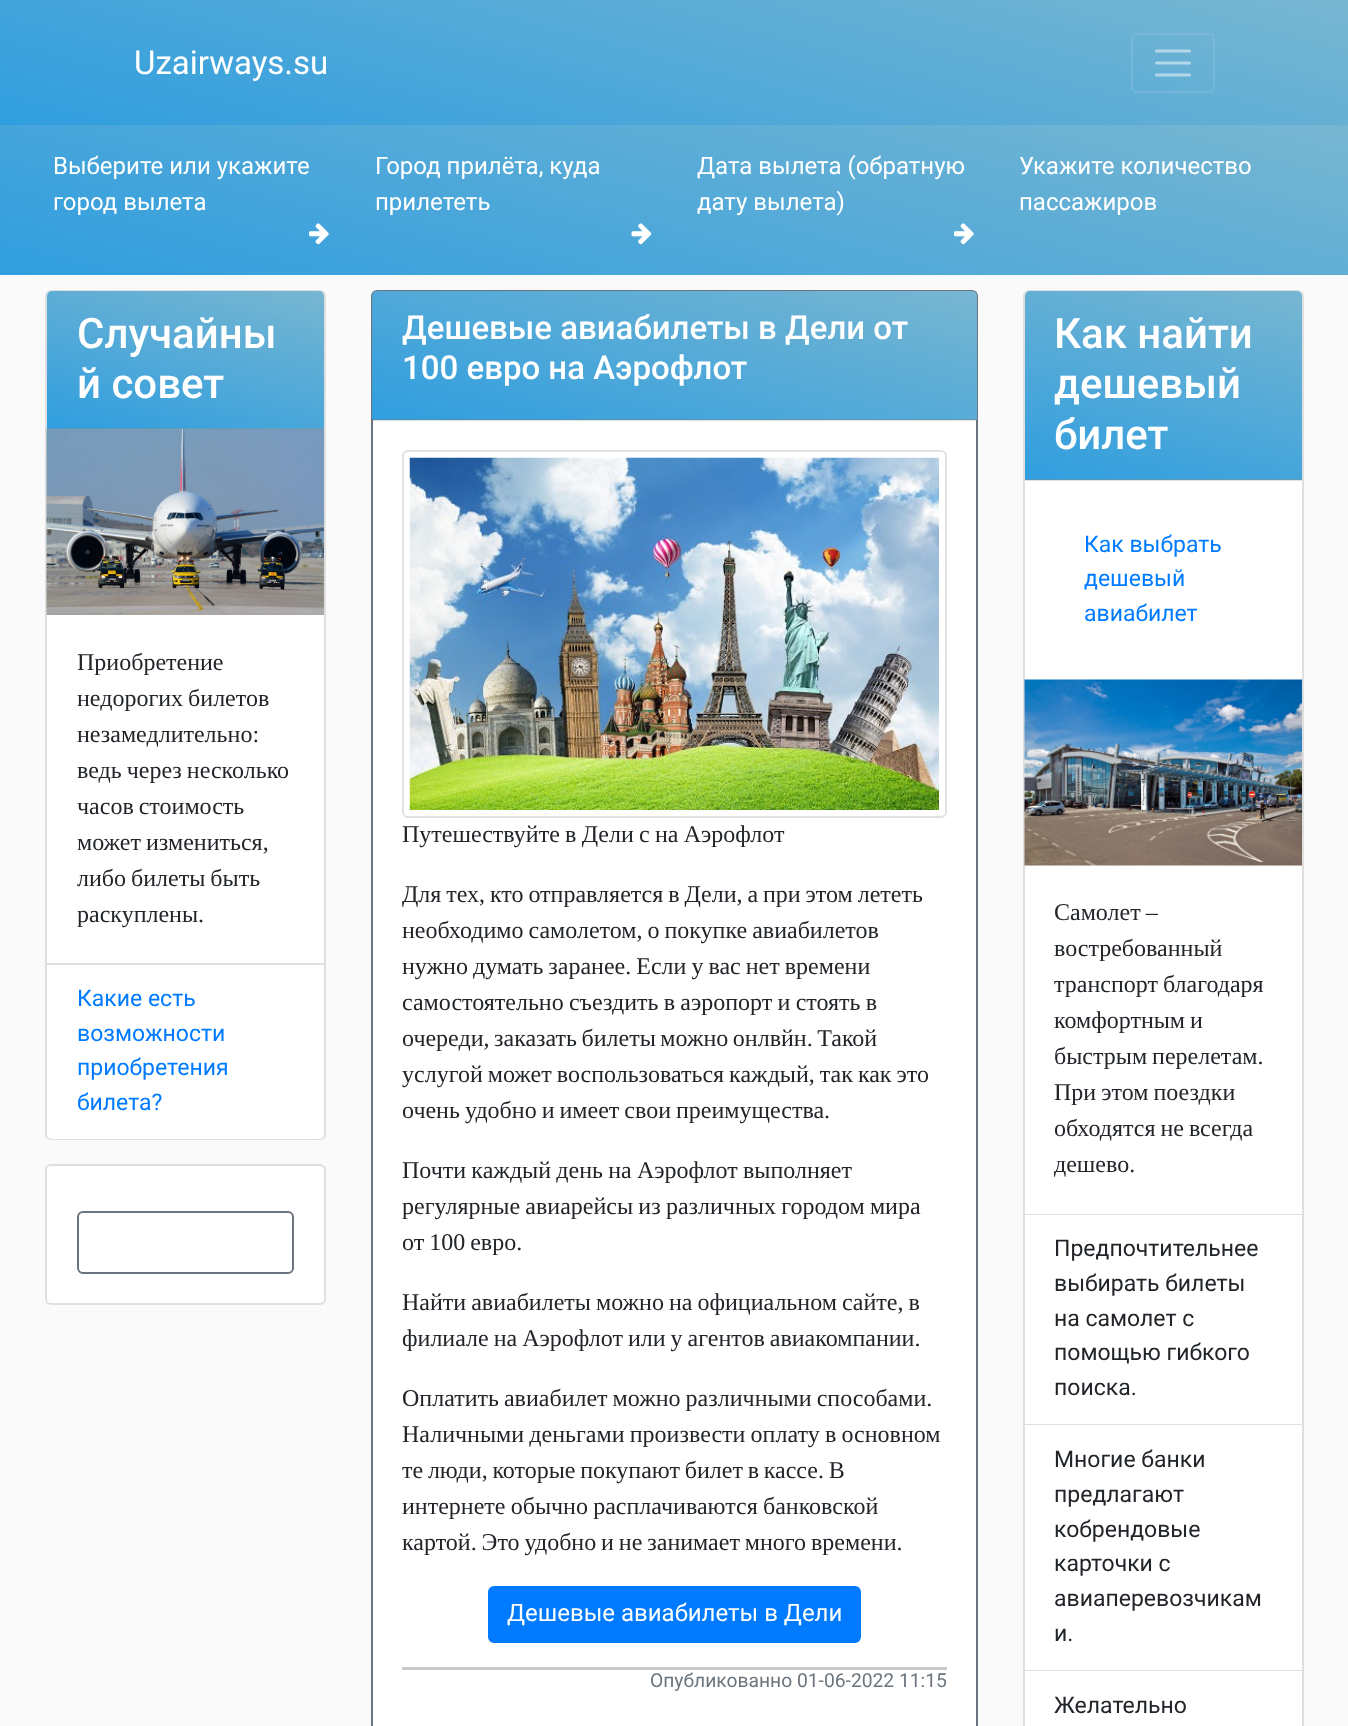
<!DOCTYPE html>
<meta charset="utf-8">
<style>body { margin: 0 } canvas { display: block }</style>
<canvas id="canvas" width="1348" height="1726"></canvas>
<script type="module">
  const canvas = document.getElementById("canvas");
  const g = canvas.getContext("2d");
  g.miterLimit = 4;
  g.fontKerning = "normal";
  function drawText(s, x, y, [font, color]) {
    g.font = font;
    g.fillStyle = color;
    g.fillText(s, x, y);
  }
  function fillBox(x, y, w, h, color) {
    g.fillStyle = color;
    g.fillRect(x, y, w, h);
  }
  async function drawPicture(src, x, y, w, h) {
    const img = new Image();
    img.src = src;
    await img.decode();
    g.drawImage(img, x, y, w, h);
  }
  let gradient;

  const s1 = ["33px Roboto", "#FFFFFF"];
  const s2 = ["24px Roboto", "#FFFFFF"];
  const s3 = ["500 42px Roboto", "#FFFFFF"];
  const s4 = ["24px Liberation Serif", "#212529"];
  const s5 = ["23px Roboto", "#007BFF"];
  const s6 = ["500 33px Roboto", "#FFFFFF"];
  const s7 = ["19.25px Roboto", "#6C757D"];
  const s8 = ["23px Roboto", "#212529"];

  fillBox(0, 0, 1348, 1726, "#FAFAFA");
  gradient = g.createLinearGradient(614, 289, 735, -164);
  gradient.addColorStop(0, "#309EDF");
  gradient.addColorStop(1, "#77B6D1");
  g.fillStyle = gradient;
  g.fillRect(0, 0, 1348, 125);
  drawText("Uzairways.su", 134, 74, s1);
  g.beginPath();
  g.roundRect(1132, 34, 82, 58, 5);
  g.strokeStyle = "rgba(255, 255, 255, 0.1)";
  g.lineWidth = 2;
  g.stroke();
  g.beginPath();
  g.moveTo(1156.5, 51);
  g.lineTo(1189.5, 51);
  g.moveTo(1156.5, 63);
  g.lineTo(1189.5, 63);
  g.moveTo(1156.5, 75);
  g.lineTo(1189.5, 75);
  g.strokeStyle = "rgba(255, 255, 255, 0.5)";
  g.lineWidth = 3;
  g.lineCap = "round";
  g.stroke();
  gradient = g.createLinearGradient(610, 438, 738, -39);
  gradient.addColorStop(0, "#309EDF");
  gradient.addColorStop(1, "#77B6D1");
  g.fillStyle = gradient;
  g.fillRect(0, 125, 1348, 150);
  drawText("Выберите или укажите", 53, 174, s2);
  drawText("город вылета", 53, 210, s2);
  await drawPicture("pic1.png", 309, 223, 20, 22);
  drawText("Город прилёта, куда", 375, 174, s2);
  drawText("прилететь", 375, 210, s2);
  await drawPicture("pic2.png", 631, 223, 21, 22);
  drawText("Дата вылета (обратную", 697, 174, s2);
  drawText("дату вылета)", 697, 210, s2);
  await drawPicture("pic3.png", 954, 223, 20, 22);
  drawText("Укажите количество", 1019, 174, s2);
  drawText("пассажиров", 1019, 210, s2);
  g.beginPath();
  g.roundRect(46, 291, 279, 848, 5);
  g.fill();
  g.strokeStyle = "#DFDFDF";
  g.lineWidth = 2;
  g.stroke();
  gradient = g.createLinearGradient(159, 458, 212, 261);
  gradient.addColorStop(0, "#309EDF");
  gradient.addColorStop(1, "#77B6D1");
  g.fillStyle = gradient;
  g.beginPath();
  g.roundRect(47, 291, 277, 137, [5, 5, 0, 0]);
  g.fill();
  gradient = g.createLinearGradient(159, 594, 212, 397);
  gradient.addColorStop(0, "#309EDF");
  gradient.addColorStop(1, "#77B6D1");
  g.fillStyle = gradient;
  g.fillRect(47, 428, 277, 1);
  fillBox(47, 428, 277, 1, "rgba(0, 0, 0, 0.12)");
  drawText("Случайны", 77, 348, s3);
  drawText("й совет", 77, 398, s3);
  await drawPicture("pic4.png", 46, 429, 278, 186);
  drawText("Приобретение", 77, 670, s4);
  g.wordSpacing = "-1px";
  drawText("недорогих билетов", 77, 706, s4);
  g.wordSpacing = "0px";
  drawText("незамедлительно:", 77, 742, s4);
  g.wordSpacing = "-1px";
  drawText("ведь через несколько", 77, 778, s4);
  drawText("часов стоимость", 77, 814, s4);
  drawText("может измениться,", 77, 850, s4);
  drawText("либо билеты быть", 77, 886, s4);
  g.wordSpacing = "0px";
  drawText("раскуплены.", 77, 922, s4);
  fillBox(47, 963, 277, 2, "#DFDFDF");
  g.fillStyle = "#FFFFFF";
  g.beginPath();
  g.roundRect(47, 965, 277, 174, [0, 0, 5, 5]);
  g.fill();
  drawText("Какие есть", 77, 1006, s5);
  drawText("возможности", 77, 1041, s5);
  drawText("приобретения", 77, 1075, s5);
  drawText("билета?", 77, 1110, s5);
  g.fillStyle = "#FFFFFF";
  g.beginPath();
  g.roundRect(46, 1165, 279, 139, 5);
  g.fill();
  g.stroke();
  g.beginPath();
  g.roundRect(78, 1212, 215, 61, 5);
  g.strokeStyle = "#6C757D";
  g.stroke();
  g.beginPath();
  g.roundRect(372, 291, 605, 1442, 5);
  g.fill();
  g.stroke();
  gradient = g.createLinearGradient(638, 490, 710, 220);
  gradient.addColorStop(0, "#309EDF");
  gradient.addColorStop(1, "#77B6D1");
  g.fillStyle = gradient;
  g.beginPath();
  g.roundRect(372, 291, 605, 128, [5, 5, 0, 0]);
  g.fill();
  gradient = g.createLinearGradient(638, 617, 710, 347);
  gradient.addColorStop(0, "#309EDF");
  gradient.addColorStop(1, "#77B6D1");
  g.fillStyle = gradient;
  g.fillRect(372, 419, 605, 1);
  fillBox(372, 419, 605, 2, "rgba(0, 0, 0, 0.12)");
  drawText("Дешевые авиабилеты в Дели от", 402, 339, s6);
  drawText("100 евро на Аэрофлот", 402, 379, s6);
  g.beginPath();
  g.roundRect(403, 451, 543, 366, 5);
  g.strokeStyle = "#DEE2E6";
  g.stroke();
  await drawPicture("pic5.png", 409, 457, 530, 353);
  g.wordSpacing = "-0.75px";
  drawText("Путешествуйте в Дели с на Аэрофлот", 402, 842, s4);
  g.wordSpacing = "-1.1px";
  drawText("Для тех, кто отправляется в Дели, а при этом лететь", 402, 902, s4);
  g.wordSpacing = "-1px";
  drawText("необходимо самолетом, о покупке авиабилетов", 402, 938, s4);
  drawText("нужно думать заранее. Если у вас нет времени", 402, 974, s4);
  g.wordSpacing = "-0.75px";
  drawText("самостоятельно съездить в аэропорт и стоять в", 402, 1010, s4);
  g.wordSpacing = "-1.5px";
  drawText("очереди, заказать билеты можно онлвйн. Такой", 402, 1046, s4);
  g.wordSpacing = "-1px";
  drawText("услугой может воспользоваться каждый, так как это", 402, 1082, s4);
  drawText("очень удобно и имеет свои преимущества.", 402, 1118, s4);
  g.wordSpacing = "-0.75px";
  drawText("Почти каждый день на Аэрофлот выполняет", 402, 1178, s4);
  drawText("регулярные авиарейсы из различных городом мира", 402, 1214, s4);
  g.wordSpacing = "-1px";
  drawText("от 100 евро.", 402, 1250, s4);
  drawText("Найти авиабилеты можно на официальном сайте, в", 402, 1310, s4);
  drawText("филиале на Аэрофлот или у агентов авиакомпании.", 402, 1346, s4);
  drawText("Оплатить авиабилет можно различными способами.", 402, 1406, s4);
  g.wordSpacing = "-0.75px";
  drawText("Наличными деньгами произвести оплату в основном", 402, 1442, s4);
  g.wordSpacing = "-1.25px";
  drawText("те люди, которые покупают билет в кассе. В", 402, 1478, s4);
  g.wordSpacing = "-0.75px";
  drawText("интернете обычно расплачиваются банковской", 402, 1514, s4);
  g.wordSpacing = "-1.1px";
  drawText("картой. Это удобно и не занимает много времени.", 402, 1550, s4);
  g.fillStyle = "#007BFF";
  g.beginPath();
  g.roundRect(489, 1587, 371, 55, 5);
  g.fill();
  g.strokeStyle = "#007BFF";
  g.stroke();
  g.wordSpacing = "0px";
  drawText("Дешевые авиабилеты в Дели", 507, 1621, s2);
  fillBox(402, 1667, 545, 3, "#C8C9CA");
  drawText("Опубликованно 01-06-2022 11:15", 650, 1687, s7);
  g.fillStyle = "#FFFFFF";
  g.beginPath();
  g.roundRect(1024, 291, 279, 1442, 5);
  g.fill();
  g.strokeStyle = "#DFDFDF";
  g.stroke();
  gradient = g.createLinearGradient(1131, 507, 1196, 263);
  gradient.addColorStop(0, "#309EDF");
  gradient.addColorStop(1, "#77B6D1");
  g.fillStyle = gradient;
  g.beginPath();
  g.roundRect(1025, 291, 277, 188, [5, 5, 0, 0]);
  g.fill();
  gradient = g.createLinearGradient(1131, 694, 1196, 450);
  gradient.addColorStop(0, "#309EDF");
  gradient.addColorStop(1, "#77B6D1");
  g.fillStyle = gradient;
  g.fillRect(1025, 479, 277, 1);
  fillBox(1025, 479, 277, 2, "rgba(0, 0, 0, 0.12)");
  drawText("Как найти", 1054, 348, s3);
  drawText("дешевый", 1054, 398, s3);
  drawText("билет", 1054, 449, s3);
  drawText("Как выбрать", 1084, 552, s5);
  drawText("дешевый", 1084, 586, s5);
  drawText("авиабилет", 1084, 621, s5);
  await drawPicture("pic6.png", 1024, 679, 278, 187);
  g.wordSpacing = "-1px";
  drawText("Самолет –", 1054, 920, s4);
  g.wordSpacing = "0px";
  drawText("востребованный", 1054, 956, s4);
  g.wordSpacing = "-1px";
  drawText("транспорт благодаря", 1054, 992, s4);
  drawText("комфортным и", 1054, 1028, s4);
  drawText("быстрым перелетам.", 1054, 1064, s4);
  drawText("При этом поездки", 1054, 1100, s4);
  drawText("обходятся не всегда", 1054, 1136, s4);
  g.wordSpacing = "0px";
  drawText("дешево.", 1054, 1172, s4);
  fillBox(1025, 1214, 277, 1, "#DFDFDF");
  fillBox(1025, 1424, 277, 1, "#DFDFDF");
  drawText("Предпочтительнее", 1054, 1256, s8);
  drawText("выбирать билеты", 1054, 1291, s8);
  drawText("на самолет с", 1054, 1326, s8);
  drawText("помощью гибкого", 1054, 1360, s8);
  drawText("поиска.", 1054, 1395, s8);
  fillBox(1025, 1670, 277, 1, "#DFDFDF");
  drawText("Многие банки", 1054, 1467, s8);
  drawText("предлагают", 1054, 1502, s8);
  drawText("кобрендовые", 1054, 1537, s8);
  drawText("карточки с", 1054, 1571, s8);
  drawText("авиаперевозчикам", 1054, 1606, s8);
  drawText("и.", 1054, 1641, s8);
  drawText("Желательно", 1054, 1713, s8);
</script>
